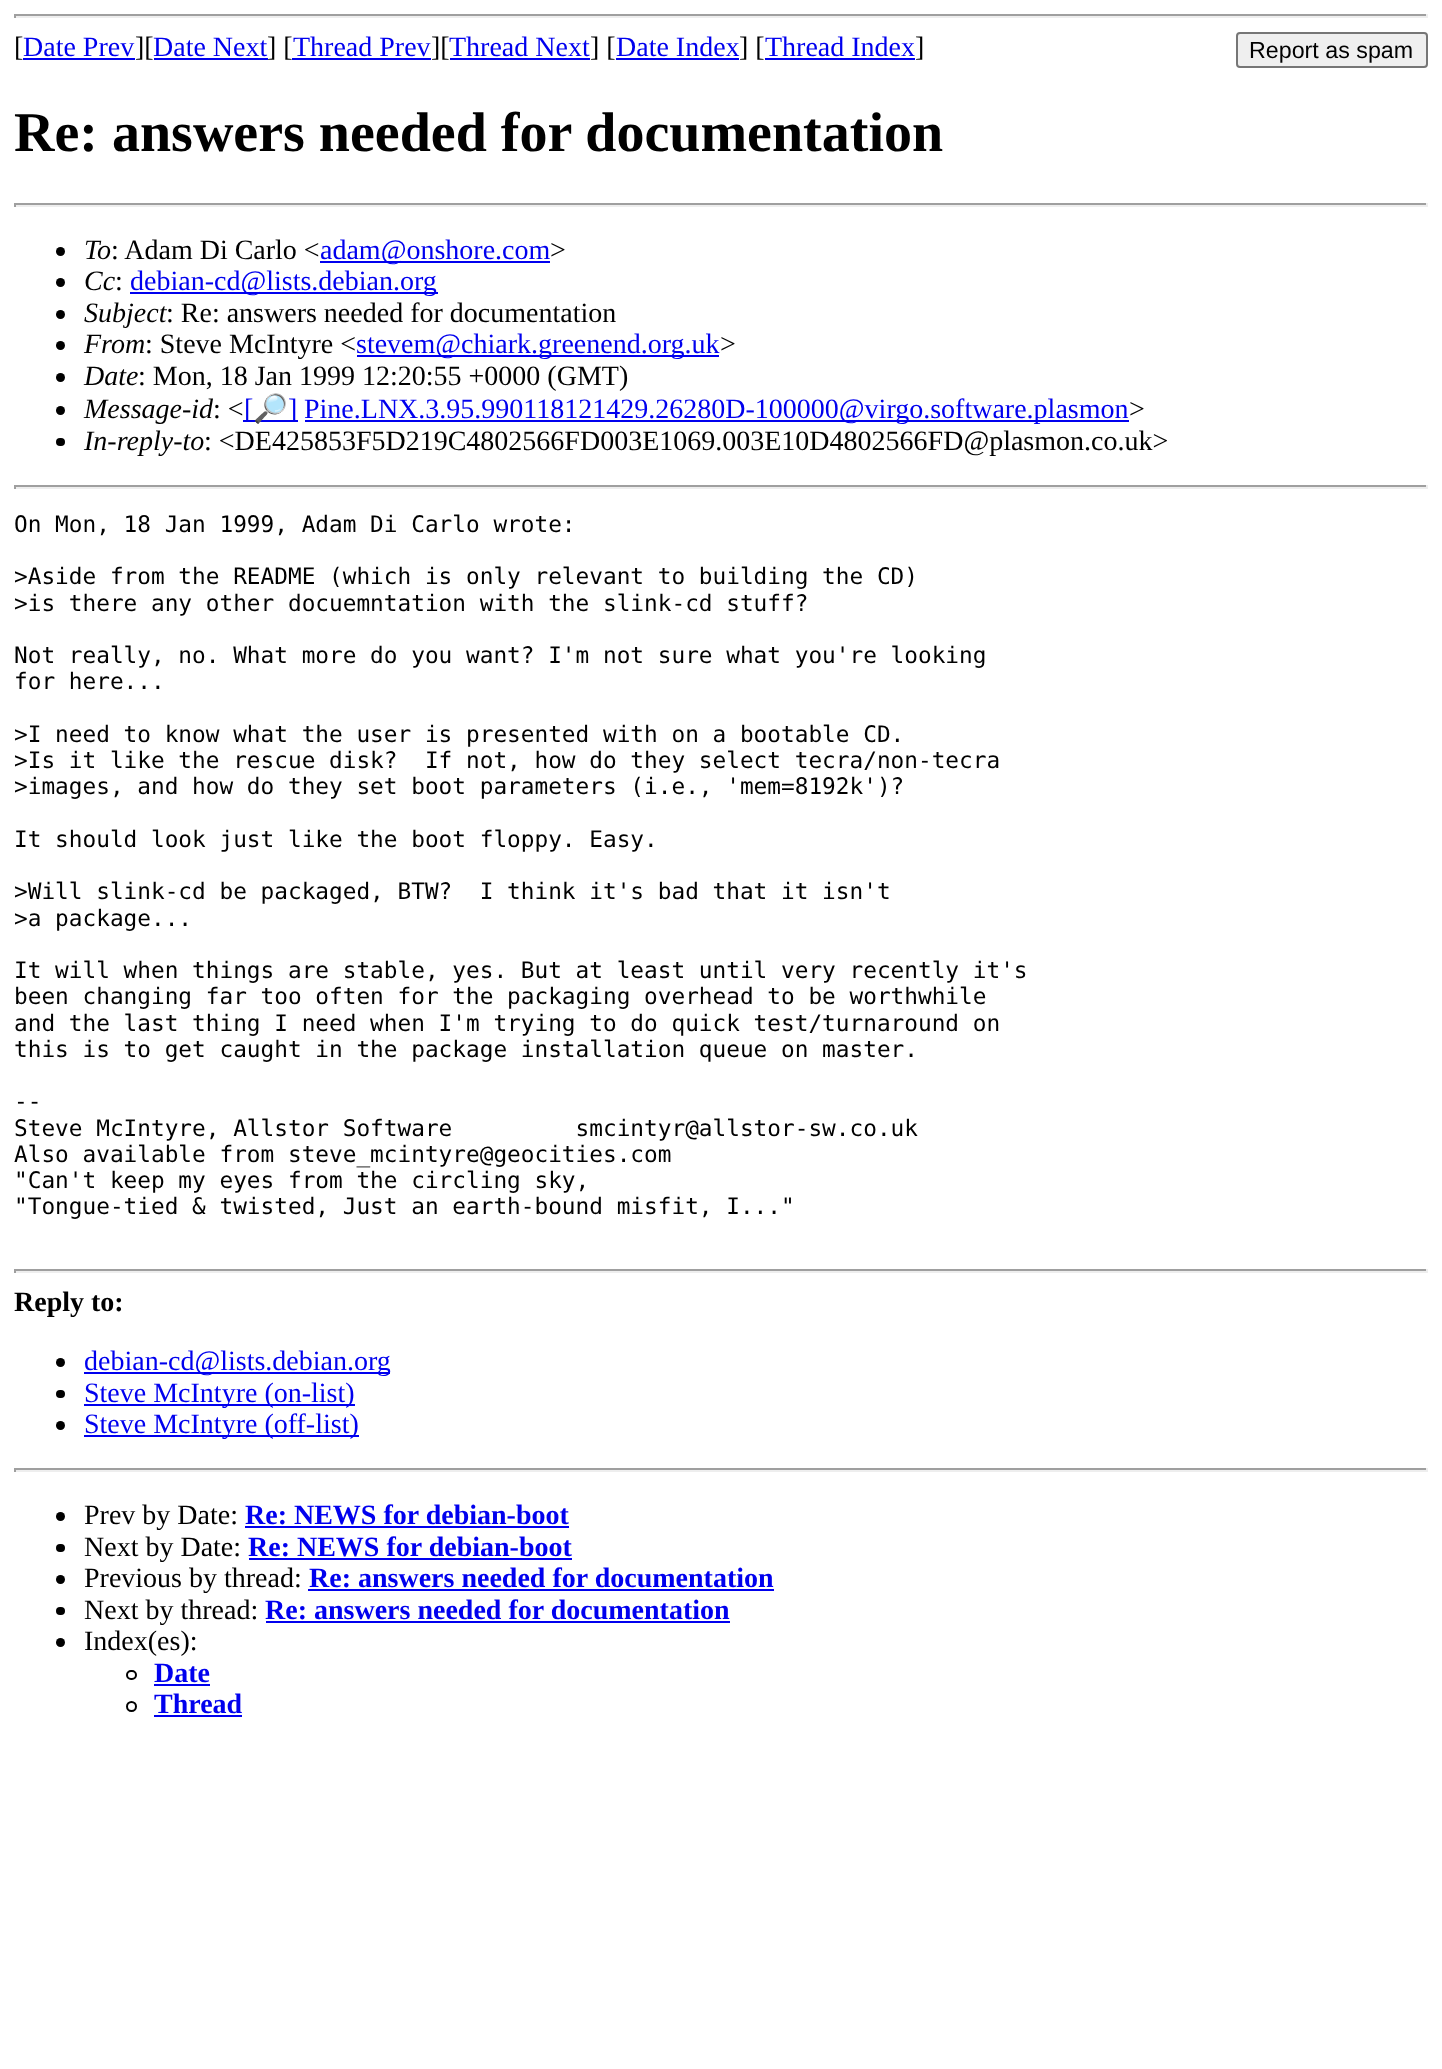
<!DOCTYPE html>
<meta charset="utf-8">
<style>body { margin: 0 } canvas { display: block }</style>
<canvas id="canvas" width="1442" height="2069"></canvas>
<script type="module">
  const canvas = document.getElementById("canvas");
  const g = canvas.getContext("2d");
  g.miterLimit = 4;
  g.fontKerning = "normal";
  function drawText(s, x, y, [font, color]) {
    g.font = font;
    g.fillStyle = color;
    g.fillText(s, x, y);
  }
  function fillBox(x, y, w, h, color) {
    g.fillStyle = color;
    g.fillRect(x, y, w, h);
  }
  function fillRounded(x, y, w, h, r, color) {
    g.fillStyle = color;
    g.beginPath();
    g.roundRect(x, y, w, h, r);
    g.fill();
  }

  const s1 = ["28px Liberation Serif", "#000000"];
  const s2 = ["28px Liberation Serif", "#0000EE"];
  const s3 = ["23.25px Liberation Sans", "#000000"];
  const s4 = ["bold 56px Liberation Serif", "#000000"];
  const s5 = ["italic 28px Liberation Serif", "#000000"];
  const s6 = ["28px Noto Color Emoji", "#0000EE"];
  const s7 = ["22.75px DejaVu Sans Mono", "#000000"];
  const s8 = ["bold 28px Liberation Serif", "#000000"];
  const s9 = ["bold 28px Liberation Serif", "#0000EE"];

  fillBox(0, 0, 1442, 2069, "#FFFFFF");
  fillBox(14, 14, 1414, 2, "#9F9F9F");
  fillBox(1426, 14, 2, 4, "#EEEEEE");
  fillBox(14, 16, 1414, 2, "#EEEEEE");
  fillBox(14, 14, 2, 4, "#9F9F9F");
  drawText("[", 14, 56, s1);
  drawText("Date Prev", 23, 56, s2);
  fillBox(23, 58, 112, 2, "#0000EE");
  drawText("][", 135, 56, s1);
  drawText("Date Next", 153, 56, s2);
  fillBox(154, 58, 114, 2, "#0000EE");
  drawText("] [", 267, 56, s1);
  drawText("Thread Prev", 293, 56, s2);
  fillBox(292, 58, 139, 2, "#0000EE");
  drawText("][", 431, 56, s1);
  drawText("Thread Next", 449, 56, s2);
  fillBox(450, 58, 140, 2, "#0000EE");
  drawText("] [", 590, 56, s1);
  drawText("Date Index", 616, 56, s2);
  fillBox(616, 58, 123, 2, "#0000EE");
  drawText("] [", 739, 56, s1);
  drawText("Thread Index", 765, 56, s2);
  fillBox(765, 58, 150, 2, "#0000EE");
  drawText("]", 915, 56, s1);
  g.fillStyle = "#EFEFEF";
  g.beginPath();
  g.roundRect(1237, 33, 190, 34, 3);
  g.fill();
  g.strokeStyle = "#767676";
  g.lineWidth = 2;
  g.stroke();
  drawText("Report as spam", 1249, 58, s3);
  drawText("Re: answers needed for documentation", 14, 151, s4);
  fillBox(14, 203, 1414, 2, "#9F9F9F");
  fillBox(1426, 203, 2, 4, "#EEEEEE");
  fillBox(14, 205, 1414, 2, "#EEEEEE");
  fillBox(14, 203, 2, 4, "#9F9F9F");
  g.fillStyle = "#000000";
  g.beginPath();
  g.arc(60.5, 251.5, 4.5, 0, Math.PI * 2);
  g.fill();
  drawText("To", 84, 259, s5);
  drawText(": Adam Di Carlo <", 111, 259, s1);
  fillBox(320, 261, 230, 2, "#0000EE");
  drawText("adam@onshore.com", 320, 259, s2);
  drawText(">", 550, 259, s1);
  g.beginPath();
  g.arc(60.5, 282.5, 4.5, 0, Math.PI * 2);
  g.fill();
  drawText("Cc", 84, 290, s5);
  drawText(":", 115, 290, s1);
  fillBox(130, 292, 308, 2, "#0000EE");
  drawText("debian-cd@lists.debian.org", 130, 290, s2);
  g.fillStyle = "#000000";
  g.beginPath();
  g.arc(60.5, 314.5, 4.5, 0, Math.PI * 2);
  g.fill();
  drawText("Subject", 84, 322, s5);
  drawText(": Re: answers needed for documentation", 166, 322, s1);
  g.beginPath();
  g.arc(60.5, 345.5, 4.5, 0, Math.PI * 2);
  g.fill();
  drawText("From", 84, 353, s5);
  drawText(": Steve McIntyre <", 145, 353, s1);
  fillBox(357, 355, 362, 2, "#0000EE");
  drawText("stevem@chiark.greenend.org.uk", 356, 353, s2);
  drawText(">", 720, 353, s1);
  g.beginPath();
  g.arc(60.5, 377.5, 4.5, 0, Math.PI * 2);
  g.fill();
  drawText("Date", 84, 385, s5);
  drawText(": Mon, 18 Jan 1999 12:20:55 +0000 (GMT)", 138, 385, s1);
  g.beginPath();
  g.arc(60.5, 410.5, 4.5, 0, Math.PI * 2);
  g.fill();
  drawText("Message-id", 84, 418, s5);
  drawText(": <", 213, 418, s1);
  fillBox(243, 420, 55, 2, "#0000EE");
  drawText("[", 244, 418, s2);
  drawText("🔎", 253, 418, s6);
  drawText("]", 288, 418, s2);
  fillBox(305, 420, 824, 2, "#0000EE");
  drawText("Pine.LNX.3.95.990118121429.26280D-100000@virgo.software.plasmon", 304, 418, s2);
  drawText(">", 1129, 418, s1);
  fillRounded(56, 438, 9, 8, 4, "#000000");
  drawText("In-reply-to", 84, 450, s5);
  drawText(": <DE425853F5D219C4802566FD003E1069.003E10D4802566FD@plasmon.co.uk>", 204, 450, s1);
  fillBox(14, 485, 1414, 2, "#9F9F9F");
  fillBox(1426, 485, 2, 4, "#EEEEEE");
  fillBox(14, 487, 1414, 2, "#EEEEEE");
  fillBox(14, 485, 2, 4, "#9F9F9F");
  drawText("On Mon, 18 Jan 1999, Adam Di Carlo wrote:", 14, 532, s7);
  drawText(">Aside from the README (which is only relevant to building the CD)", 14, 584, s7);
  drawText(">is there any other docuemntation with the slink-cd stuff?", 14, 611, s7);
  drawText("Not really, no. What more do you want? I'm not sure what you're looking", 14, 663, s7);
  drawText("for here...", 14, 689, s7);
  drawText(">I need to know what the user is presented with on a bootable CD.", 14, 742, s7);
  drawText(">Is it like the rescue disk?  If not, how do they select tecra/non-tecra", 14, 768, s7);
  drawText(">images, and how do they set boot parameters (i.e., 'mem=8192k')?", 14, 794, s7);
  drawText("It should look just like the boot floppy. Easy.", 14, 847, s7);
  drawText(">Will slink-cd be packaged, BTW?  I think it's bad that it isn't", 14, 899, s7);
  drawText(">a package...", 14, 926, s7);
  drawText("It will when things are stable, yes. But at least until very recently it's", 14, 978, s7);
  drawText("been changing far too often for the packaging overhead to be worthwhile", 14, 1004, s7);
  drawText("and the last thing I need when I'm trying to do quick test/turnaround on", 14, 1031, s7);
  drawText("this is to get caught in the package installation queue on master.", 14, 1057, s7);
  drawText("--", 14, 1109, s7);
  drawText("Steve McIntyre, Allstor Software         smcintyr@allstor-sw.co.uk", 14, 1136, s7);
  drawText("Also available from steve_mcintyre@geocities.com", 14, 1162, s7);
  drawText("\"Can't keep my eyes from the circling sky,", 14, 1188, s7);
  drawText("\"Tongue-tied & twisted, Just an earth-bound misfit, I...\"", 14, 1214, s7);
  fillBox(14, 1269, 1414, 2, "#9F9F9F");
  fillBox(1426, 1269, 2, 4, "#EEEEEE");
  fillBox(14, 1271, 1414, 2, "#EEEEEE");
  fillBox(14, 1269, 2, 4, "#9F9F9F");
  drawText("Reply to:", 14, 1311, s8);
  g.beginPath();
  g.arc(60.5, 1362.5, 4.5, 0, Math.PI * 2);
  g.fill();
  fillBox(84, 1372, 306, 2, "#0000EE");
  drawText("debian-cd@lists.debian.org", 84, 1370, s2);
  fillRounded(56, 1390, 9, 8, 4, "#000000");
  fillBox(84, 1404, 271, 2, "#0000EE");
  drawText("Steve McIntyre (on-list)", 84, 1402, s2);
  g.fillStyle = "#000000";
  g.beginPath();
  g.arc(60.5, 1425.5, 4.5, 0, Math.PI * 2);
  g.fill();
  fillBox(84, 1435, 275, 2, "#0000EE");
  drawText("Steve McIntyre (off-list)", 84, 1433, s2);
  fillBox(14, 1468, 1414, 2, "#9F9F9F");
  fillBox(1426, 1468, 2, 4, "#EEEEEE");
  fillBox(14, 1470, 1414, 2, "#EEEEEE");
  fillBox(14, 1468, 2, 4, "#9F9F9F");
  g.fillStyle = "#000000";
  g.beginPath();
  g.arc(60.5, 1516.5, 4.5, 0, Math.PI * 2);
  g.fill();
  drawText("Prev by Date:", 84, 1524, s1);
  drawText("Re: NEWS for debian-boot", 245, 1524, s9);
  fillBox(245, 1526, 324, 2, "#0000EE");
  fillRounded(56, 1544, 9, 8, 4, "#000000");
  drawText("Next by Date:", 84, 1556, s1);
  drawText("Re: NEWS for debian-boot", 248, 1556, s9);
  fillBox(249, 1558, 323, 2, "#0000EE");
  g.fillStyle = "#000000";
  g.beginPath();
  g.arc(60.5, 1579.5, 4.5, 0, Math.PI * 2);
  g.fill();
  drawText("Previous by thread:", 84, 1587, s1);
  drawText("Re: answers needed for documentation", 309, 1587, s9);
  fillBox(308, 1589, 466, 2, "#0000EE");
  fillRounded(56, 1607, 9, 8, 4, "#000000");
  drawText("Next by thread:", 84, 1619, s1);
  drawText("Re: answers needed for documentation", 265, 1619, s9);
  fillBox(266, 1621, 464, 2, "#0000EE");
  g.fillStyle = "#000000";
  g.beginPath();
  g.arc(60.5, 1642.5, 4.5, 0, Math.PI * 2);
  g.fill();
  drawText("Index(es):", 84, 1650, s1);
  g.beginPath();
  g.roundRect(127, 1671, 9, 8, 4);
  g.strokeStyle = "#000000";
  g.stroke();
  drawText("Date", 154, 1682, s9);
  fillBox(154, 1684, 56, 2, "#0000EE");
  g.beginPath();
  g.arc(131.5, 1706.5, 4.5, 0, Math.PI * 2);
  g.stroke();
  drawText("Thread", 154, 1713, s9);
  fillBox(154, 1715, 88, 2, "#0000EE");
</script>
